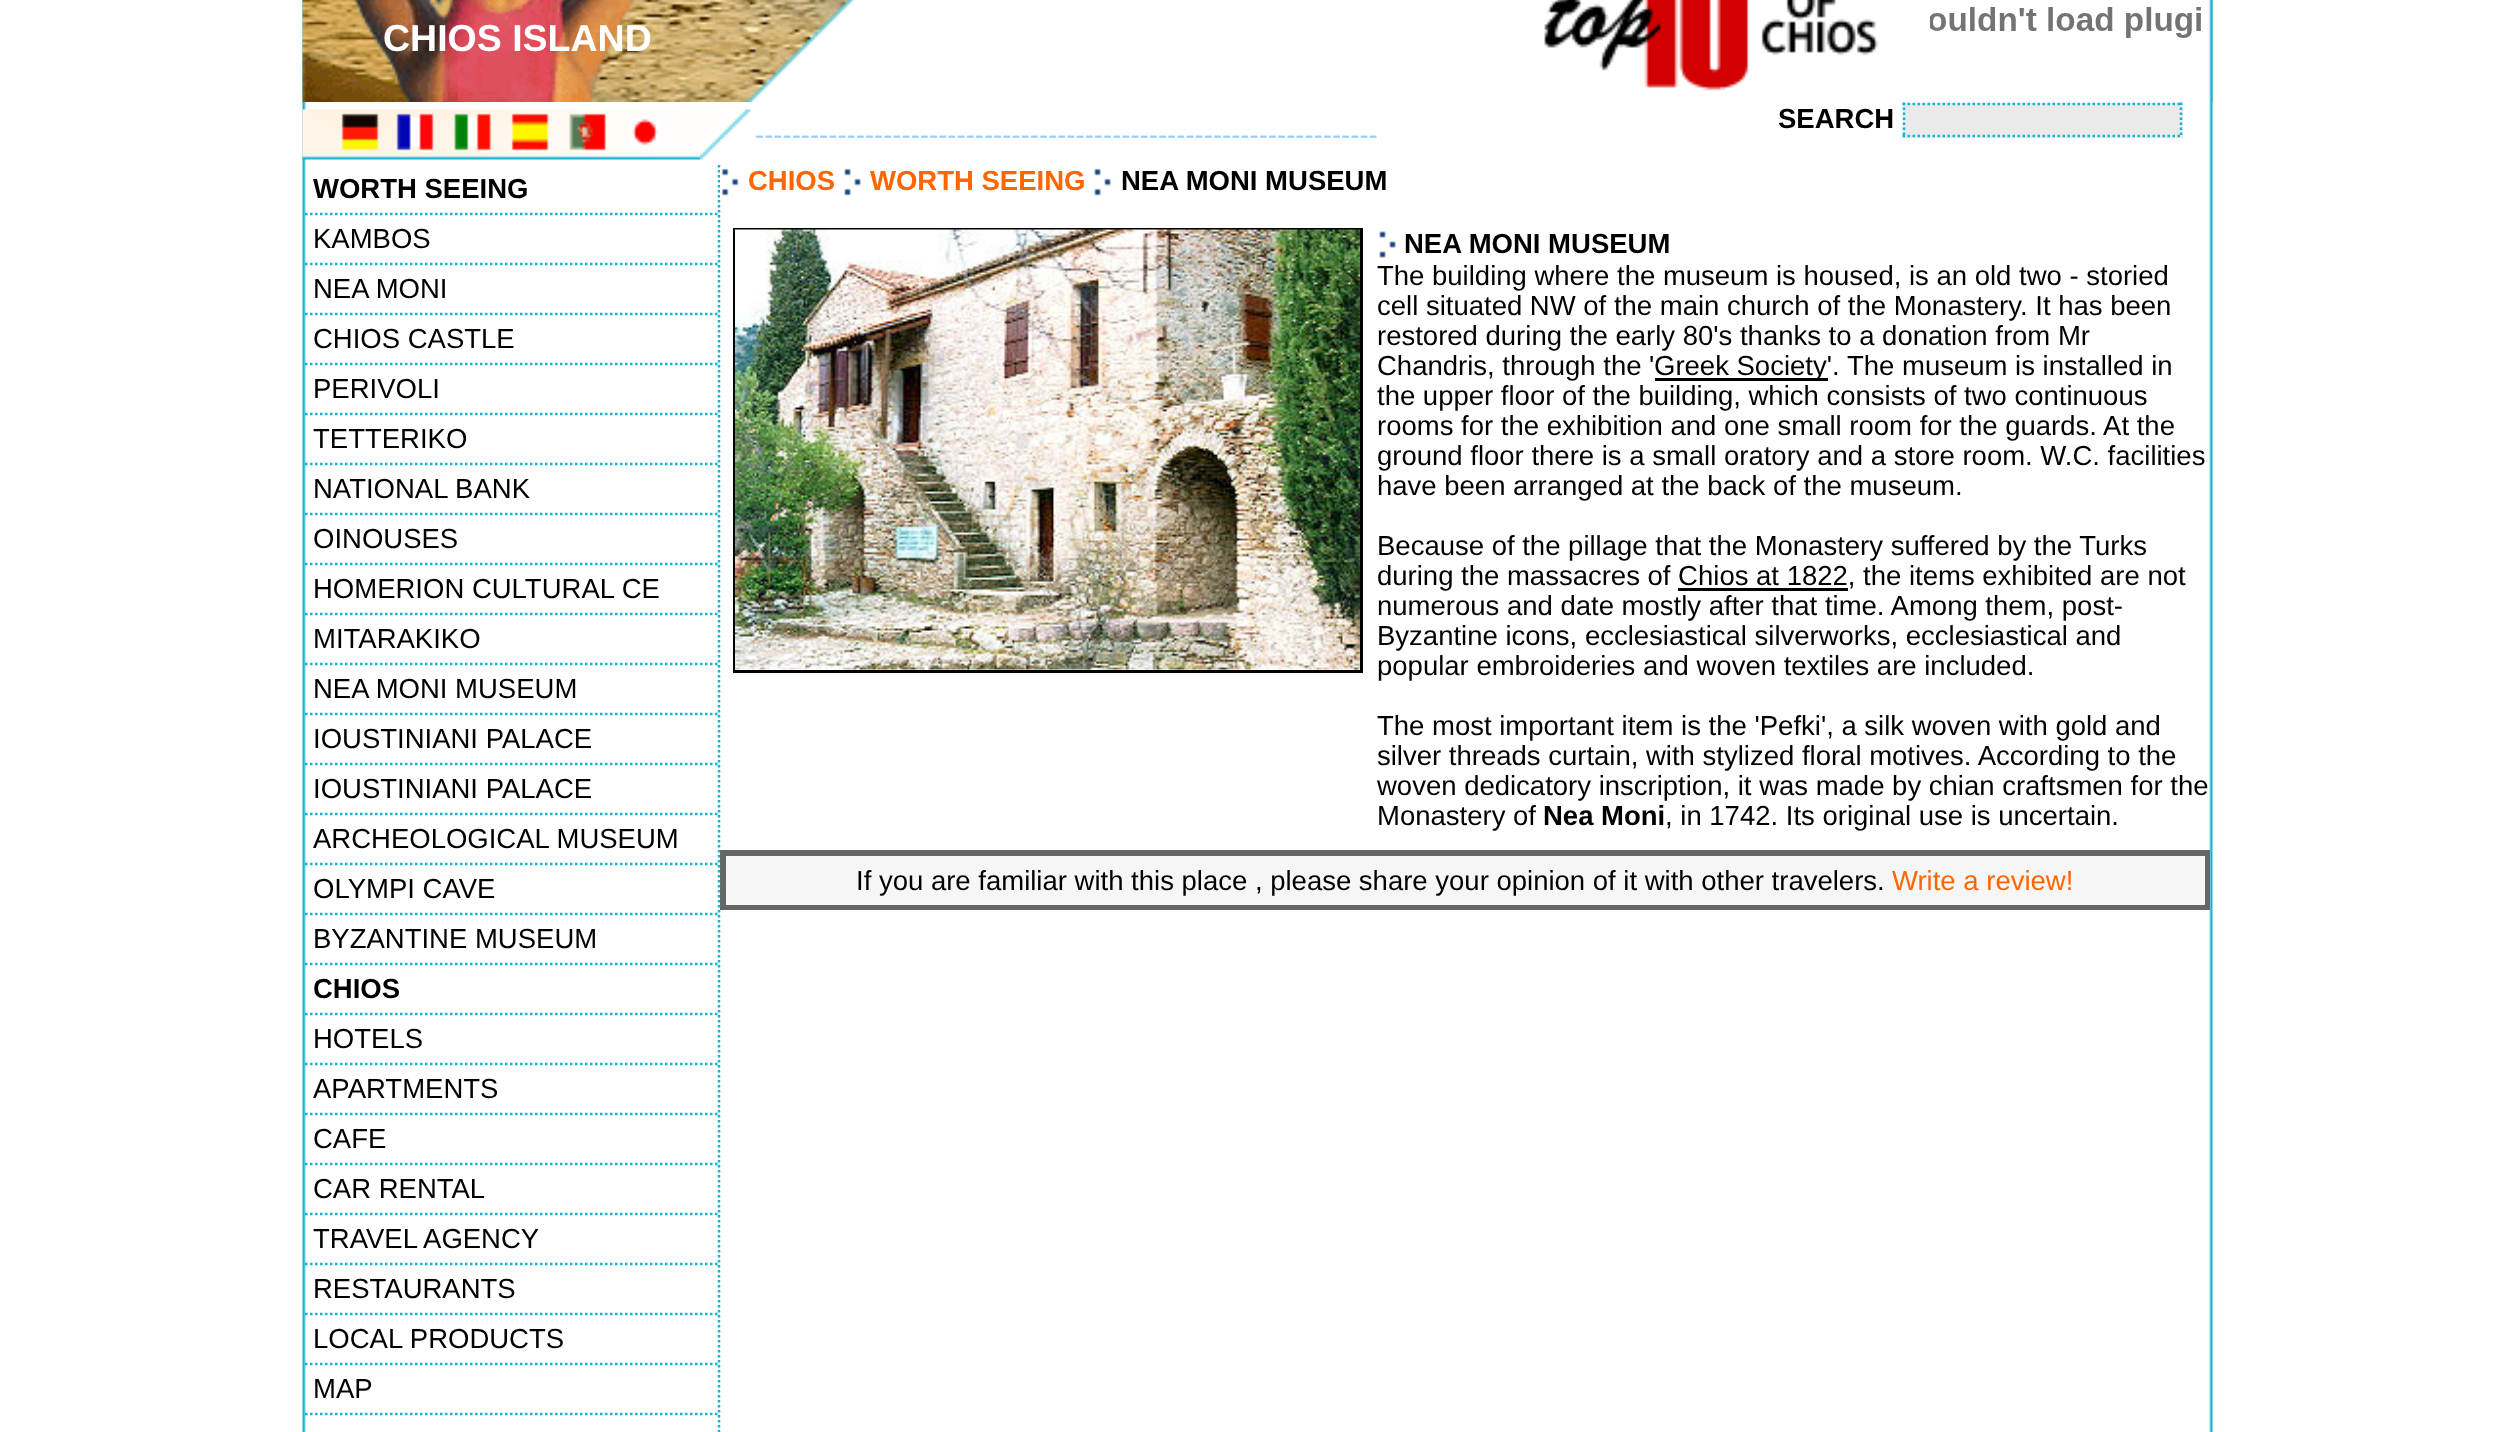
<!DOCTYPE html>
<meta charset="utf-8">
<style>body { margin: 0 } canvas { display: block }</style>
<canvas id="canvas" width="2514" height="1432"></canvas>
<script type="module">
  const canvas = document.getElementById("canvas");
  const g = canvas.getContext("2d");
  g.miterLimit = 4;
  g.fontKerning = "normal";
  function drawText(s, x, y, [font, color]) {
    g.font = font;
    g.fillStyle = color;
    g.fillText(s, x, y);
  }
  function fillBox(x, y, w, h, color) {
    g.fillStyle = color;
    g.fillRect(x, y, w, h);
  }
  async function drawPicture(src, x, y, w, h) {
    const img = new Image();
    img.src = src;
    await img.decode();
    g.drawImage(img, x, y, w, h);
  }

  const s1 = ["bold 37.5px Liberation Sans", "#FFFFFF"];
  const s2 = ["27.5px Liberation Sans", "#99CCFF"];
  const s3 = ["bold 27.5px Liberation Sans", "#000000"];
  const s4 = ["27.5px Liberation Sans", "#000000"];
  const s5 = ["bold 27.5px Liberation Sans", "#FF6600"];
  const s6 = ["27.5px Liberation Sans", "#FF6600"];

  fillBox(0, 0, 2514, 1432, "#FFFFFF");
  await drawPicture("pic1.png", 302, 0, 1911, 1432);
  await drawPicture("pic2.png", 302, 0, 554, 102);
  drawText("CHIOS ISLAND", 383, 51, s1);
  fillBox(2212, 0, 1, 102, "#4DC6DE");
  await drawPicture("pic3.png", 1544, 0, 335, 91);
  await drawPicture("pic4.png", 1930, 7, 271, 31);
  await drawPicture("pic5.png", 302, 109, 398, 51);
  await drawPicture("pic6.png", 700, 109, 51, 51);
  drawText("--------------------------------------------------------------------", 755, 144, s2);
  drawText("SEARCH", 1778, 128, s3);
  fillBox(1903, 103, 280, 35, "#EAEAEA");
  g.beginPath();
  g.moveTo(1902.5, 104);
  g.lineTo(2182.5, 104);
  g.strokeStyle = "#12B4D4";
  g.lineWidth = 2.5;
  g.setLineDash([2.5, 2.5]);
  g.stroke();
  g.beginPath();
  g.moveTo(2181, 102.5);
  g.lineTo(2181, 137.5);
  g.stroke();
  g.beginPath();
  g.moveTo(1902.5, 136);
  g.lineTo(2182.5, 136);
  g.stroke();
  g.beginPath();
  g.moveTo(1904, 102.5);
  g.lineTo(1904, 137.5);
  g.stroke();
  g.beginPath();
  g.moveTo(719, 165);
  g.lineTo(719, 215);
  g.stroke();
  g.beginPath();
  g.moveTo(305, 214);
  g.lineTo(720, 214);
  g.stroke();
  drawText("WORTH SEEING", 313, 198, s3);
  g.beginPath();
  g.moveTo(719, 215);
  g.lineTo(719, 265);
  g.stroke();
  g.beginPath();
  g.moveTo(305, 264);
  g.lineTo(720, 264);
  g.stroke();
  drawText("KAMBOS", 313, 248, s4);
  g.beginPath();
  g.moveTo(719, 265);
  g.lineTo(719, 315);
  g.stroke();
  g.beginPath();
  g.moveTo(305, 314);
  g.lineTo(720, 314);
  g.stroke();
  drawText("NEA MONI", 313, 298, s4);
  g.beginPath();
  g.moveTo(719, 315);
  g.lineTo(719, 365);
  g.stroke();
  g.beginPath();
  g.moveTo(305, 364);
  g.lineTo(720, 364);
  g.stroke();
  drawText("CHIOS CASTLE", 313, 348, s4);
  g.beginPath();
  g.moveTo(719, 365);
  g.lineTo(719, 415);
  g.stroke();
  g.beginPath();
  g.moveTo(305, 414);
  g.lineTo(720, 414);
  g.stroke();
  drawText("PERIVOLI", 313, 398, s4);
  g.beginPath();
  g.moveTo(719, 415);
  g.lineTo(719, 465);
  g.stroke();
  g.beginPath();
  g.moveTo(305, 464);
  g.lineTo(720, 464);
  g.stroke();
  drawText("TETTERIKO", 313, 448, s4);
  g.beginPath();
  g.moveTo(719, 465);
  g.lineTo(719, 515);
  g.stroke();
  g.beginPath();
  g.moveTo(305, 514);
  g.lineTo(720, 514);
  g.stroke();
  drawText("NATIONAL BANK", 313, 498, s4);
  g.beginPath();
  g.moveTo(719, 515);
  g.lineTo(719, 565);
  g.stroke();
  g.beginPath();
  g.moveTo(305, 564);
  g.lineTo(720, 564);
  g.stroke();
  drawText("OINOUSES", 313, 548, s4);
  g.beginPath();
  g.moveTo(719, 565);
  g.lineTo(719, 615);
  g.stroke();
  g.beginPath();
  g.moveTo(305, 614);
  g.lineTo(720, 614);
  g.stroke();
  drawText("HOMERION CULTURAL CE", 313, 598, s4);
  g.beginPath();
  g.moveTo(719, 615);
  g.lineTo(719, 665);
  g.stroke();
  g.beginPath();
  g.moveTo(305, 664);
  g.lineTo(720, 664);
  g.stroke();
  drawText("MITARAKIKO", 313, 648, s4);
  g.beginPath();
  g.moveTo(719, 665);
  g.lineTo(719, 715);
  g.stroke();
  g.beginPath();
  g.moveTo(305, 714);
  g.lineTo(720, 714);
  g.stroke();
  drawText("NEA MONI MUSEUM", 313, 698, s4);
  g.beginPath();
  g.moveTo(719, 715);
  g.lineTo(719, 765);
  g.stroke();
  g.beginPath();
  g.moveTo(305, 764);
  g.lineTo(720, 764);
  g.stroke();
  drawText("IOUSTINIANI PALACE", 313, 748, s4);
  g.beginPath();
  g.moveTo(719, 765);
  g.lineTo(719, 815);
  g.stroke();
  g.beginPath();
  g.moveTo(305, 814);
  g.lineTo(720, 814);
  g.stroke();
  drawText("IOUSTINIANI PALACE", 313, 798, s4);
  g.strokeStyle = "#666666";
  g.lineWidth = 3;
  g.setLineDash([]);
  g.strokeRect(721.5, 851.5, 1487, 57);
  g.beginPath();
  g.moveTo(719, 815);
  g.lineTo(719, 865);
  g.strokeStyle = "#12B4D4";
  g.lineWidth = 2.5;
  g.setLineDash([2.5, 2.5]);
  g.stroke();
  g.beginPath();
  g.moveTo(305, 864);
  g.lineTo(720, 864);
  g.stroke();
  drawText("ARCHEOLOGICAL MUSEUM", 313, 848, s4);
  g.beginPath();
  g.moveTo(719, 865);
  g.lineTo(719, 915);
  g.stroke();
  g.beginPath();
  g.moveTo(305, 914);
  g.lineTo(720, 914);
  g.stroke();
  drawText("OLYMPI CAVE", 313, 898, s4);
  g.beginPath();
  g.moveTo(719, 915);
  g.lineTo(719, 965);
  g.stroke();
  g.beginPath();
  g.moveTo(305, 964);
  g.lineTo(720, 964);
  g.stroke();
  drawText("BYZANTINE MUSEUM", 313, 948, s4);
  g.beginPath();
  g.moveTo(719, 965);
  g.lineTo(719, 1015);
  g.stroke();
  g.beginPath();
  g.moveTo(305, 1014);
  g.lineTo(720, 1014);
  g.stroke();
  drawText("CHIOS", 313, 998, s3);
  g.beginPath();
  g.moveTo(719, 1015);
  g.lineTo(719, 1065);
  g.stroke();
  g.beginPath();
  g.moveTo(305, 1064);
  g.lineTo(720, 1064);
  g.stroke();
  drawText("HOTELS", 313, 1048, s4);
  g.beginPath();
  g.moveTo(719, 1065);
  g.lineTo(719, 1115);
  g.stroke();
  g.beginPath();
  g.moveTo(305, 1114);
  g.lineTo(720, 1114);
  g.stroke();
  drawText("APARTMENTS", 313, 1098, s4);
  g.beginPath();
  g.moveTo(719, 1115);
  g.lineTo(719, 1165);
  g.stroke();
  g.beginPath();
  g.moveTo(305, 1164);
  g.lineTo(720, 1164);
  g.stroke();
  drawText("CAFE", 313, 1148, s4);
  g.beginPath();
  g.moveTo(719, 1165);
  g.lineTo(719, 1215);
  g.stroke();
  g.beginPath();
  g.moveTo(305, 1214);
  g.lineTo(720, 1214);
  g.stroke();
  drawText("CAR RENTAL", 313, 1198, s4);
  g.beginPath();
  g.moveTo(719, 1215);
  g.lineTo(719, 1265);
  g.stroke();
  g.beginPath();
  g.moveTo(305, 1264);
  g.lineTo(720, 1264);
  g.stroke();
  drawText("TRAVEL AGENCY", 313, 1248, s4);
  g.beginPath();
  g.moveTo(719, 1265);
  g.lineTo(719, 1315);
  g.stroke();
  g.beginPath();
  g.moveTo(305, 1314);
  g.lineTo(720, 1314);
  g.stroke();
  drawText("RESTAURANTS", 313, 1298, s4);
  g.beginPath();
  g.moveTo(719, 1315);
  g.lineTo(719, 1365);
  g.stroke();
  g.beginPath();
  g.moveTo(305, 1364);
  g.lineTo(720, 1364);
  g.stroke();
  drawText("LOCAL PRODUCTS", 313, 1348, s4);
  g.beginPath();
  g.moveTo(719, 1365);
  g.lineTo(719, 1415);
  g.stroke();
  g.beginPath();
  g.moveTo(305, 1414);
  g.lineTo(720, 1414);
  g.stroke();
  drawText("MAP", 313, 1398, s4);
  g.beginPath();
  g.moveTo(719, 1415);
  g.lineTo(719, 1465);
  g.stroke();
  await drawPicture("pic7.png", 720, 167, 19, 30);
  drawText("CHIOS", 748, 190, s5);
  await drawPicture("pic8.png", 844, 168, 17, 28);
  drawText("WORTH SEEING", 870, 190, s5);
  await drawPicture("pic8.png", 1094, 168, 17, 28);
  drawText("NEA MONI MUSEUM", 1121, 190, s3);
  fillBox(733, 228, 630, 445, "#000000");
  fillBox(735, 669, 625, 1, "#FFFFFF");
  await drawPicture("pic9.png", 735, 229, 625, 441);
  await drawPicture("pic10.png", 1379, 231, 17, 27);
  drawText("NEA MONI MUSEUM", 1404, 253, s3);
  drawText("The building where the museum is housed, is an old two - storied", 1377, 285, s4);
  drawText("cell situated NW of the main church of the Monastery. It has been", 1377, 315, s4);
  drawText("restored during the early 80's thanks to a donation from Mr", 1377, 345, s4);
  drawText("Chandris, through the '", 1377, 375, s4);
  fillBox(1655, 378, 173, 3, "#000000");
  drawText("Greek Society'.", 1654, 375, s4);
  drawText("The museum is installed in", 1847, 375, s4);
  drawText("the upper floor of the building, which consists of two continuous", 1377, 405, s4);
  drawText("rooms for the exhibition and one small room for the guards. At the", 1377, 435, s4);
  drawText("ground floor there is a small oratory and a store room. W.C. facilities", 1377, 465, s4);
  drawText("have been arranged at the back of the museum.", 1377, 495, s4);
  drawText("Because of the pillage that the Monastery suffered by the Turks", 1377, 555, s4);
  drawText("during the massacres of Chios at 1822, the items exhibited are not", 1377, 585, s4);
  fillBox(1678, 588, 170, 3, "#000000");
  drawText("numerous and date mostly after that time. Among them, post-", 1377, 615, s4);
  drawText("Byzantine icons, ecclesiastical silverworks, ecclesiastical and", 1377, 645, s4);
  drawText("popular embroideries and woven textiles are included.", 1377, 675, s4);
  drawText("The most important item is the 'Pefki', a silk woven with gold and", 1377, 735, s4);
  drawText("silver threads curtain, with stylized floral motives. According to the", 1377, 765, s4);
  drawText("woven dedicatory inscription, it was made by chian craftsmen for the", 1377, 795, s4);
  drawText("Monastery of", 1377, 825, s4);
  drawText("Nea Moni", 1543, 825, s3);
  drawText(", in 1742. Its original use is uncertain.", 1665, 825, s4);
  g.fillStyle = "#F6F6F6";
  g.beginPath();
  g.rect(724.5, 854.5, 1482, 52);
  g.fill();
  g.strokeStyle = "#666666";
  g.lineWidth = 3;
  g.setLineDash([]);
  g.stroke();
  drawText("If you are familiar with this place , please share your opinion of it with other travelers.", 856, 890, s4);
  drawText("Write a review!", 1892, 890, s6);
</script>
